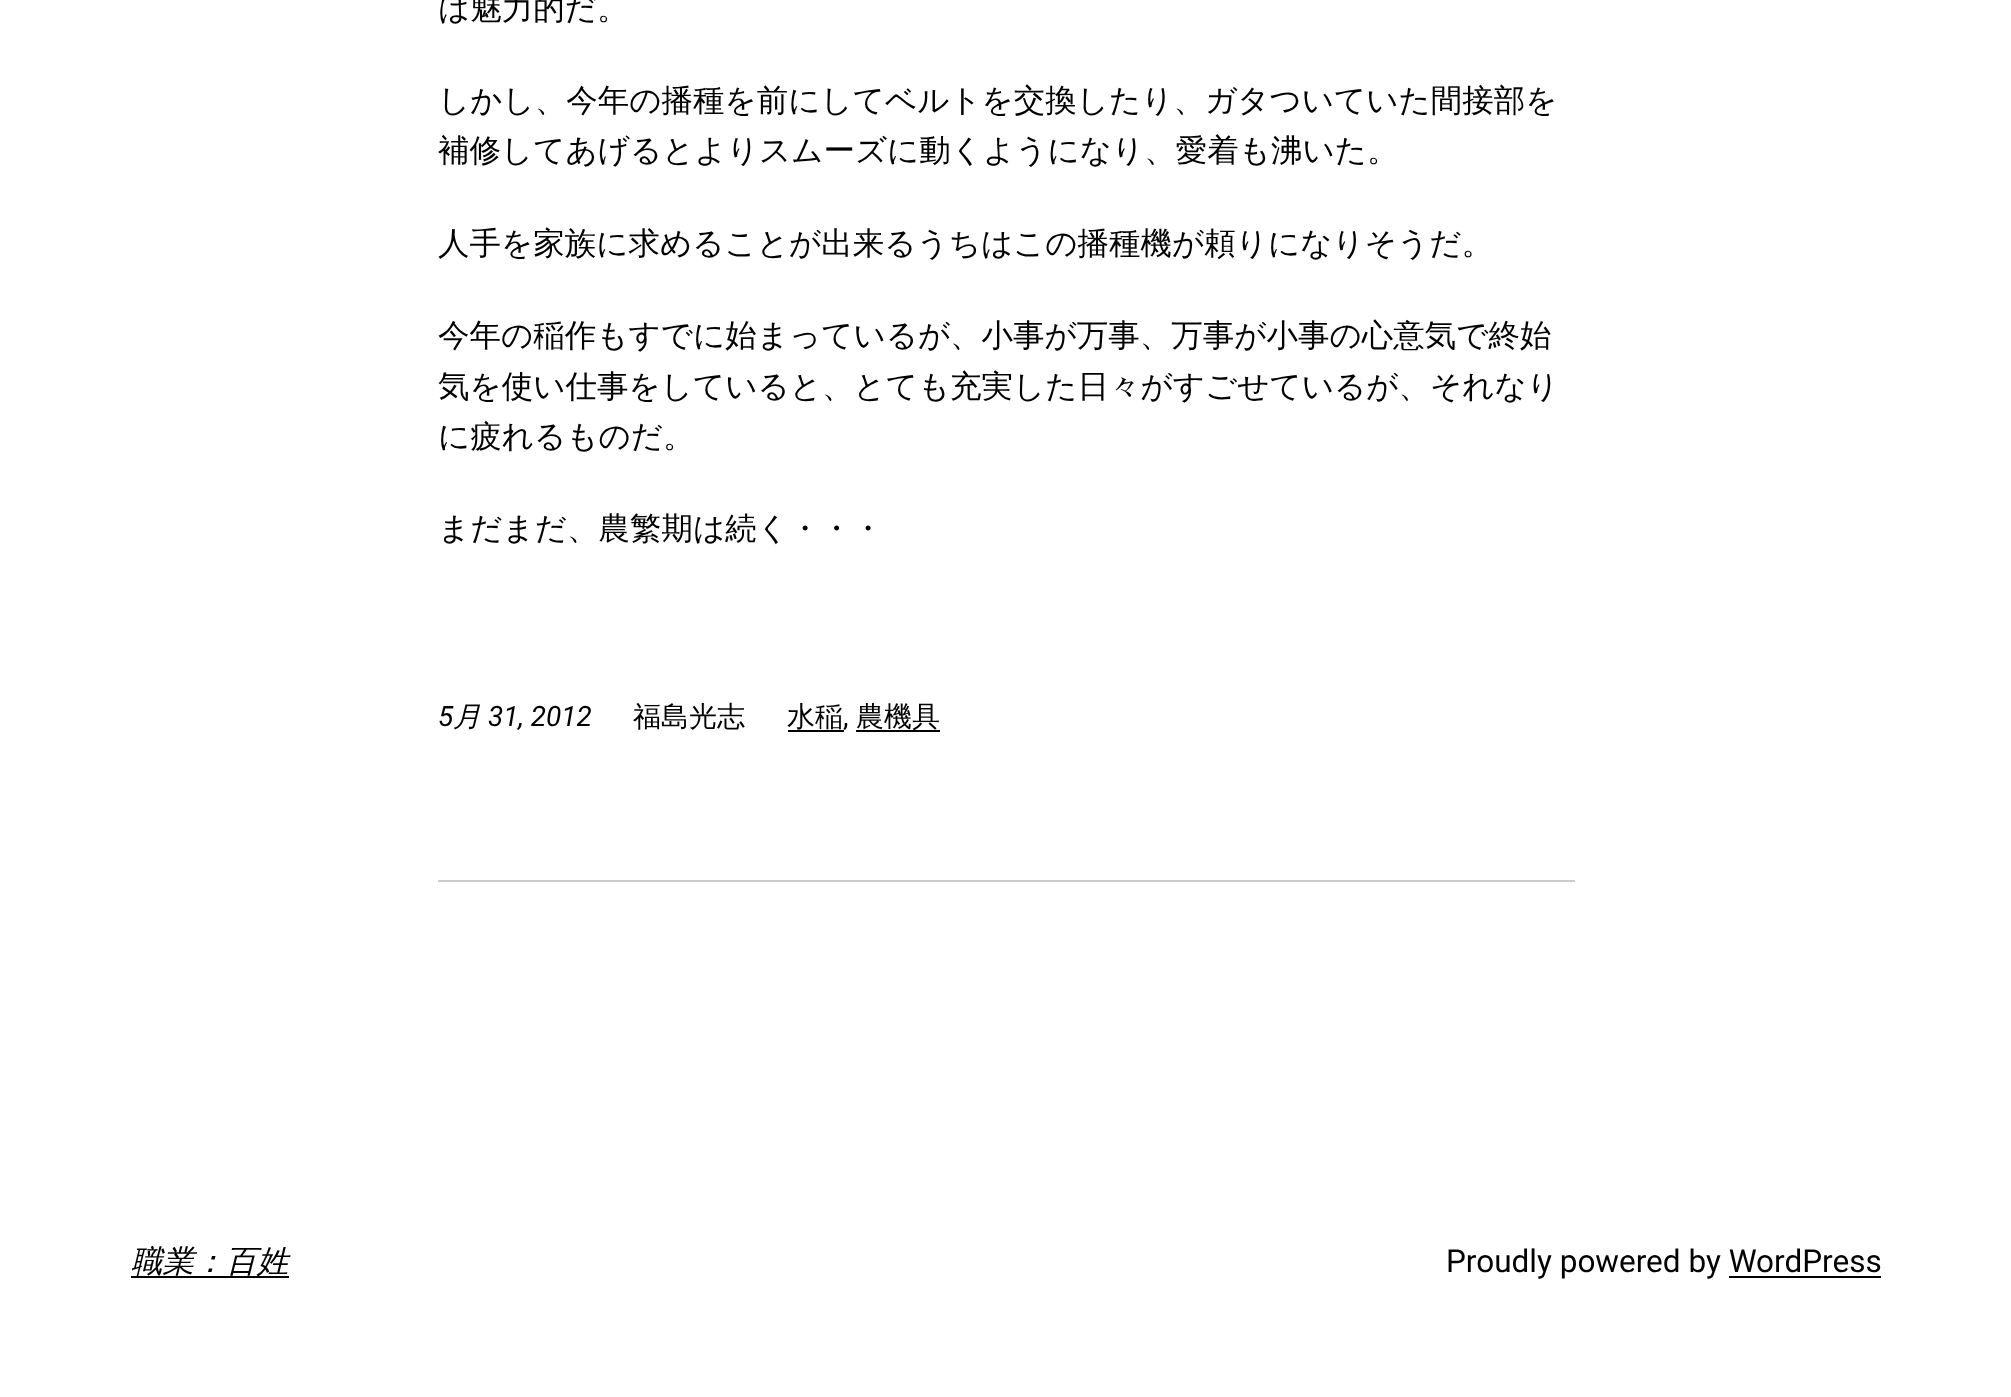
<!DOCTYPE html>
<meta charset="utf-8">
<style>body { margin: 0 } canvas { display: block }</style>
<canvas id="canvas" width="2011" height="1397"></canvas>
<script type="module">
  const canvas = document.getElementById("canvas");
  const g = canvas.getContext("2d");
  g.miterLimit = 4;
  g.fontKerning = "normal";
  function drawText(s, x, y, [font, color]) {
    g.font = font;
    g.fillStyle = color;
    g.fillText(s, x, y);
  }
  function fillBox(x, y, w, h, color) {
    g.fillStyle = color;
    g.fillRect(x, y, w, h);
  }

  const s1 = ["500 31.5px WenQuanYi Zen Hei", "#000000"];
  const s2 = ["italic 28px Roboto", "#000000"];
  const s3 = ["italic 500 28px WenQuanYi Zen Hei", "#000000"];
  const s4 = ["500 28px WenQuanYi Zen Hei", "#000000"];
  const s5 = ["28px Roboto", "#000000"];
  const s6 = ["italic 500 31.5px WenQuanYi Zen Hei", "#000000"];
  const s7 = ["31.5px Roboto", "#000000"];

  fillBox(0, 0, 2011, 1397, "#FFFFFF");
  drawText("は魅力的だ。", 438, 19, s1);
  drawText("しかし、今年の播種を前にしてベルトを交換したり、ガタついていた間接部を", 438, 111, s1);
  drawText("補修してあげるとよりスムーズに動くようになり、愛着も沸いた。", 438, 161, s1);
  drawText("人手を家族に求めることが出来るうちはこの播種機が頼りになりそうだ。", 438, 254, s1);
  drawText("今年の稲作もすでに始まっているが、小事が万事、万事が小事の心意気で終始", 438, 346, s1);
  drawText("気を使い仕事をしていると、とても充実した日々がすごせているが、それなり", 438, 397, s1);
  drawText("に疲れるものだ。", 438, 447, s1);
  drawText("まだまだ、農繁期は続く・・・", 438, 539, s1);
  drawText("5", 438, 726, s2);
  drawText("月", 453, 726, s3);
  drawText("31, 2012", 488, 726, s2);
  drawText("福島光志", 633, 726, s4);
  drawText("水稲", 787, 726, s4);
  fillBox(788, 730, 56, 2, "#000000");
  drawText(",", 843, 726, s5);
  fillBox(856, 730, 84, 2, "#000000");
  drawText("農機具", 856, 726, s4);
  fillBox(438, 880, 1137, 2, "#CCCCCC");
  fillBox(131, 1276, 158, 2, "#000000");
  drawText("職業：百姓", 131, 1272, s6);
  drawText("Proudly powered by WordPress", 1446, 1272, s7);
  fillBox(1729, 1276, 152, 2, "#000000");
</script>
